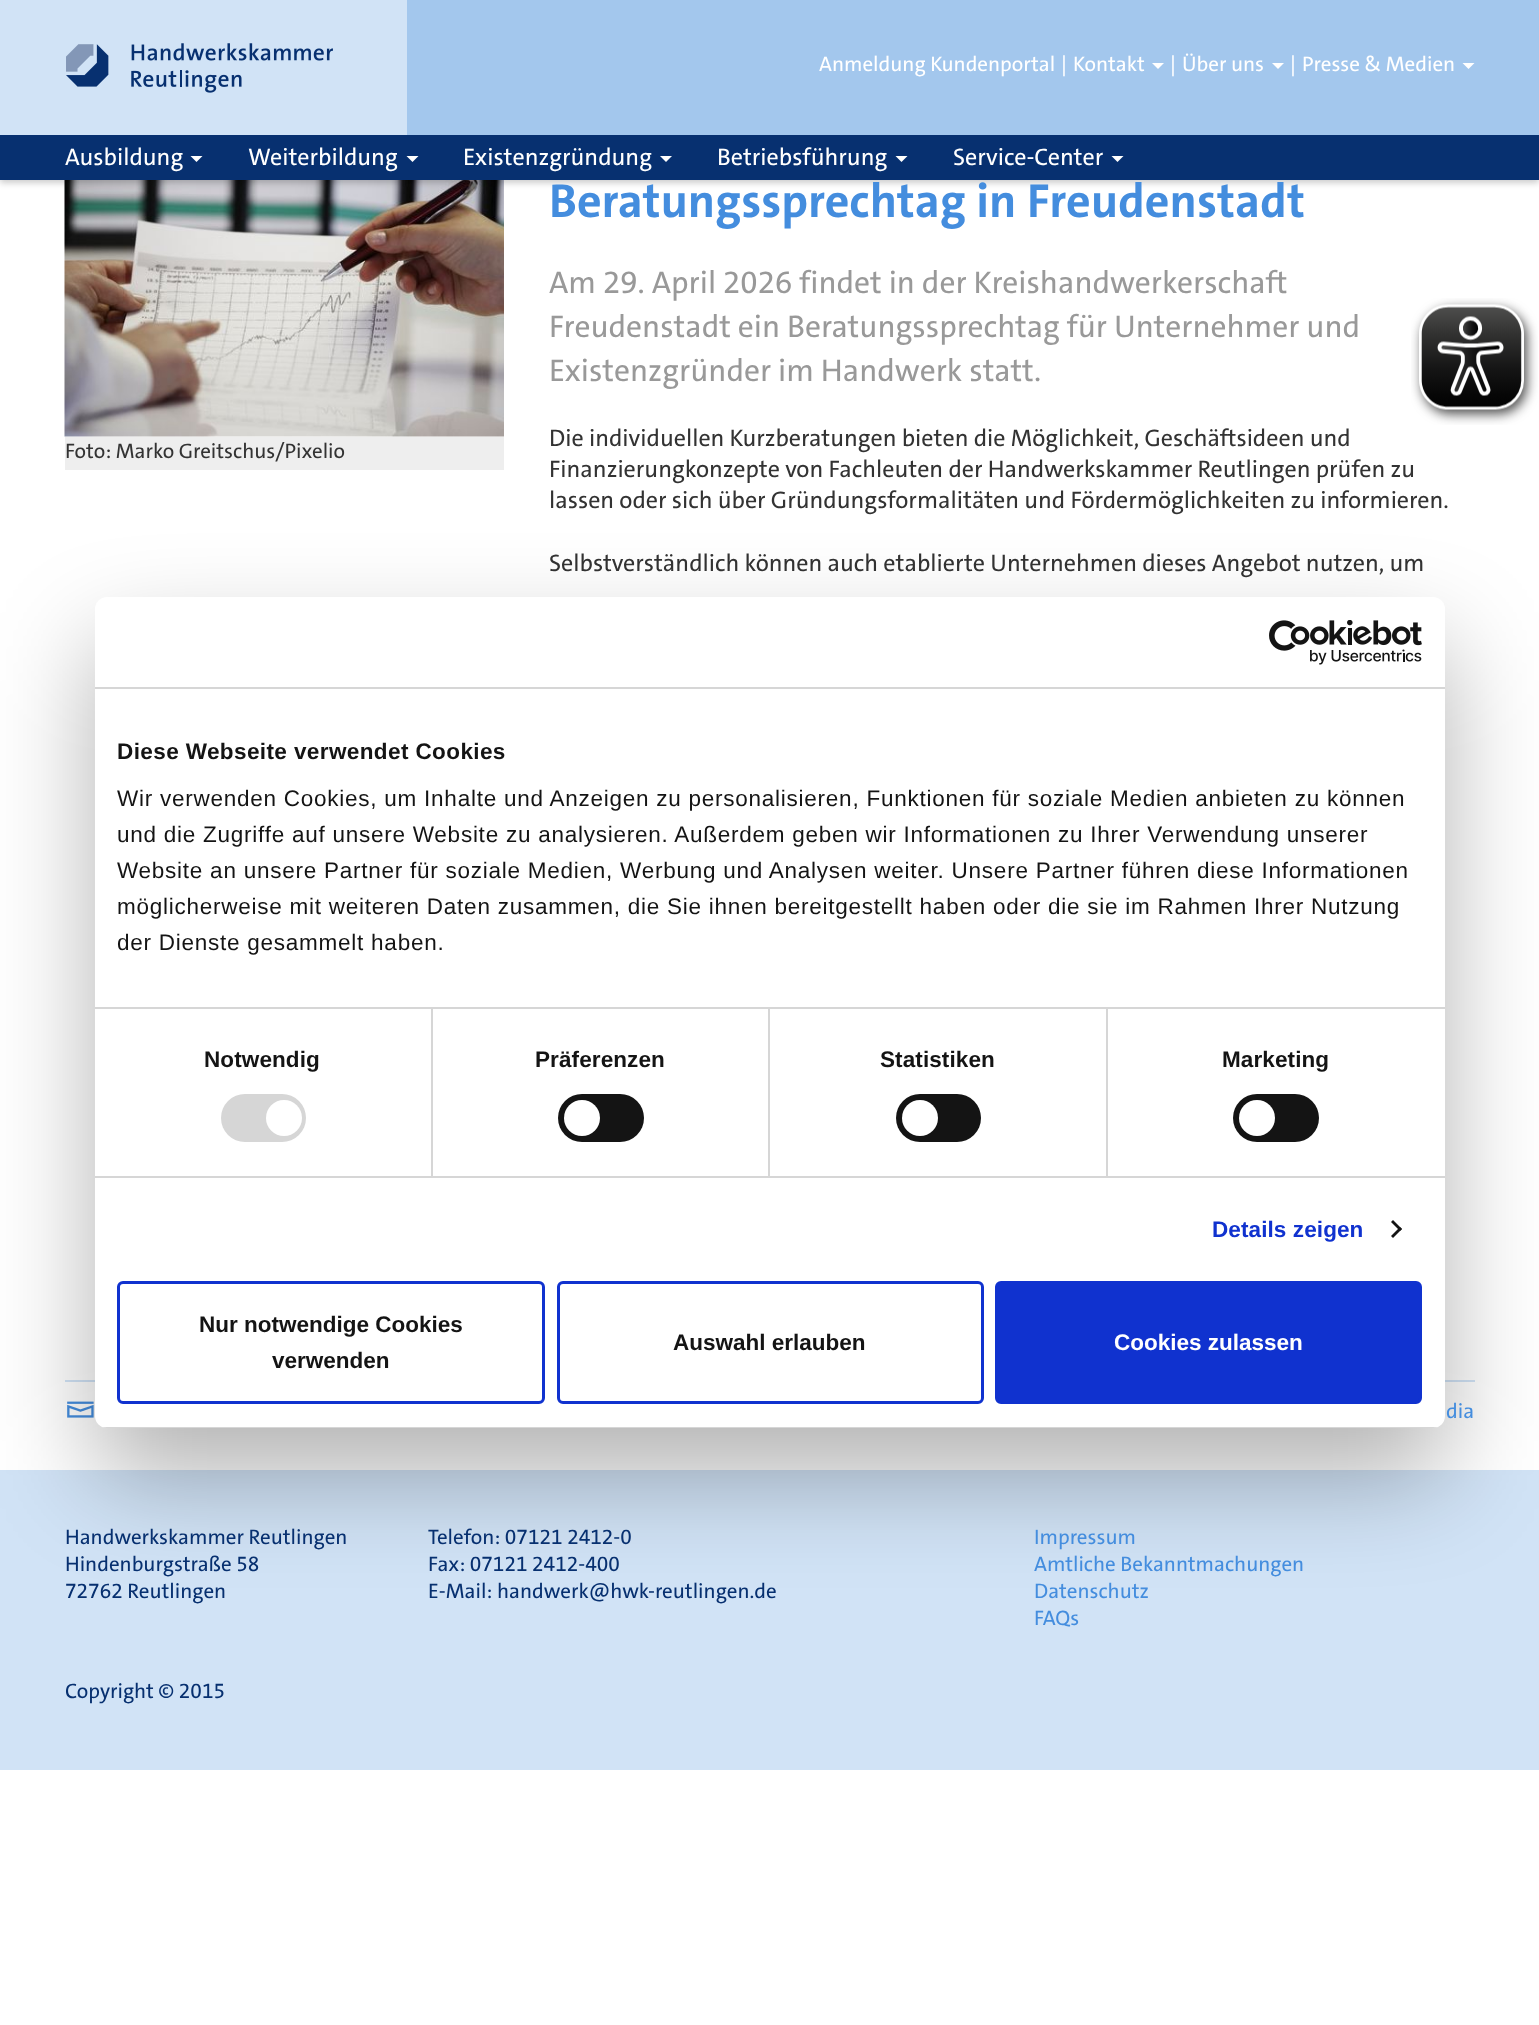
<!DOCTYPE html>
<meta charset="utf-8">
<style>body { margin: 0 } canvas { display: block }</style>
<canvas id="canvas" width="1539" height="2025"></canvas>
<script type="module">
  const canvas = document.getElementById("canvas");
  const g = canvas.getContext("2d");
  g.miterLimit = 4;
  g.fontKerning = "normal";
  function drawText(s, x, y, [font, color]) {
    g.font = font;
    g.fillStyle = color;
    g.fillText(s, x, y);
  }
  function fillBox(x, y, w, h, color) {
    g.fillStyle = color;
    g.fillRect(x, y, w, h);
  }
  function fillRounded(x, y, w, h, r, color) {
    g.fillStyle = color;
    g.beginPath();
    g.roundRect(x, y, w, h, r);
    g.fill();
  }
  async function drawPicture(src, x, y, w, h) {
    const img = new Image();
    img.src = src;
    await img.decode();
    g.drawImage(img, x, y, w, h);
  }

  const s1 = ["21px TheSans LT", "#FFFFFF"];
  const s2 = ["24px TheSans LT", "#FFFFFF"];
  const s3 = ["21px TheSans LT", "#333333"];
  const s4 = ["bold 48px TheSans LT", "#448DDE"];
  const s5 = ["31.5px TheSans LT", "#999999"];
  const s6 = ["24px TheSans LT", "#333333"];
  const s7 = ["bold 22.5px Liberation Sans", "#141414"];
  const s8 = ["22.5px Liberation Sans", "#141414"];
  const s9 = ["bold 22.5px Liberation Sans", "#1032CF"];
  const s10 = ["bold 22.5px Liberation Sans", "#FFFFFF"];
  const s11 = ["21px TheSans LT", "#448DDE"];
  const s12 = ["21px TheSans LT", "#073070"];

  fillBox(0, 0, 1539, 2025, "#FFFFFF");
  await drawPicture("pic2.png", 64, 180, 440, 257);
  g.fillStyle = "rgba(0, 0, 0, 0.2)";
  g.filter = "blur(3px)";
  g.beginPath();
  g.rect(0, 3, 1539, 180);
  g.fill();
  g.filter = "none";
  fillBox(0, 135, 1539, 45, "#073070");
  fillBox(407, 0, 1132, 135, "#A3C7ED");
  fillBox(0, 0, 407, 135, "#D1E3F6");
  await drawPicture("pic1.png", 66, 43, 267, 50);
  drawText("Anmeldung Kundenportal", 819, 71, s1);
  drawText("|", 1061, 71, s1);
  drawText("Kontakt", 1073, 71, s1);
  g.beginPath();
  g.moveTo(1152, 63);
  g.lineTo(1164, 63);
  g.lineTo(1158, 69);
  g.closePath();
  g.fill();
  drawText("|", 1170, 71, s1);
  drawText("Über uns", 1182, 71, s1);
  g.beginPath();
  g.moveTo(1272, 63);
  g.lineTo(1284, 63);
  g.lineTo(1278, 69);
  g.closePath();
  g.fill();
  drawText("|", 1290, 71, s1);
  drawText("Presse & Medien", 1302, 71, s1);
  g.beginPath();
  g.moveTo(1462.5, 63);
  g.lineTo(1474.5, 63);
  g.lineTo(1468.5, 69);
  g.closePath();
  g.fill();
  drawText("Ausbildung", 65, 165, s2);
  g.beginPath();
  g.moveTo(190.5, 156);
  g.lineTo(202.5, 156);
  g.lineTo(196.5, 162);
  g.closePath();
  g.fill();
  drawText("Weiterbildung", 248, 165, s2);
  g.beginPath();
  g.moveTo(406.5, 156);
  g.lineTo(418.5, 156);
  g.lineTo(412.5, 162);
  g.closePath();
  g.fill();
  drawText("Existenzgründung", 463, 165, s2);
  g.beginPath();
  g.moveTo(660, 156);
  g.lineTo(672, 156);
  g.lineTo(666, 162);
  g.closePath();
  g.fill();
  drawText("Betriebsführung", 717, 165, s2);
  g.beginPath();
  g.moveTo(895.5, 156);
  g.lineTo(907.5, 156);
  g.lineTo(901.5, 162);
  g.closePath();
  g.fill();
  drawText("Service-Center", 953, 165, s2);
  g.beginPath();
  g.moveTo(1111.5, 156);
  g.lineTo(1123.5, 156);
  g.lineTo(1117.5, 162);
  g.closePath();
  g.fill();
  fillBox(65, 437, 439, 33, "#EEEEEE");
  drawText("Foto: Marko Greitschus/Pixelio", 65, 458, s3);
  drawText("Beratungssprechtag in Freudenstadt", 549, 217, s4);
  drawText("Am 29. April 2026 findet in der Kreishandwerkerschaft", 549, 293, s5);
  drawText("Freudenstadt ein Beratungssprechtag für Unternehmer und", 549, 337, s5);
  drawText("Existenzgründer im Handwerk statt.", 549, 381, s5);
  drawText("Die individuellen Kurzberatungen bieten die Möglichkeit, Geschäftsideen und", 549, 446, s6);
  drawText("Finanzierungkonzepte von Fachleuten der Handwerkskammer Reutlingen prüfen zu", 549, 477, s6);
  drawText("lassen oder sich über Gründungsformalitäten und Fördermöglichkeiten zu informieren.", 549, 508, s6);
  drawText("Selbstverständlich können auch etablierte Unternehmen dieses Angebot nutzen, um", 549, 571, s6);
  await drawPicture("pic3.png", 1411, 298, 127, 127);
  fillBox(65, 1380, 1410, 2, "#D1E3F6");
  await drawPicture("pic5.png", 67, 1401, 27, 17);
  fillBox(0, 1470, 1539, 300, "#D1E3F6");
  g.fillStyle = "rgba(0, 0, 0, 0.3)";
  g.filter = "blur(51px)";
  g.beginPath();
  g.roundRect(95, 645, 1350, 831, 12);
  g.fill();
  g.filter = "none";
  fillRounded(95, 597, 1350, 831, 12, "#FFFFFF");
  fillBox(95, 687, 1350, 2, "#D6D6D6");
  await drawPicture("pic4.png", 1269, 620, 153, 45);
  fillBox(431, 1008, 2, 168, "#D6D6D6");
  fillBox(768, 1008, 2, 168, "#D6D6D6");
  fillBox(1106, 1008, 2, 168, "#D6D6D6");
  fillBox(95, 1007, 1350, 2, "#D6D6D6");
  g.letterSpacing = "0.4px";
  drawText("Diese Webseite verwendet Cookies", 117, 759, s7);
  g.letterSpacing = "0.75px";
  drawText("Wir verwenden Cookies, um Inhalte und Anzeigen zu personalisieren, Funktionen für soziale Medien anbieten zu können", 117, 806, s8);
  drawText("und die Zugriffe auf unsere Website zu analysieren. Außerdem geben wir Informationen zu Ihrer Verwendung unserer", 117, 842, s8);
  drawText("Website an unsere Partner für soziale Medien, Werbung und Analysen weiter. Unsere Partner führen diese Informationen", 117, 878, s8);
  drawText("möglicherweise mit weiteren Daten zusammen, die Sie ihnen bereitgestellt haben oder die sie im Rahmen Ihrer Nutzung", 117, 914, s8);
  drawText("der Dienste gesammelt haben.", 117, 950, s8);
  fillBox(95, 1176, 1350, 2, "#D6D6D6");
  g.letterSpacing = "0.1px";
  drawText("Notwendig", 204, 1067, s7);
  fillRounded(221, 1094, 85, 48, 24, "#D6D6D6");
  g.fillStyle = "#FFFFFF";
  g.beginPath();
  g.arc(284, 1118, 18, 0, Math.PI * 2);
  g.fill();
  drawText("Präferenzen", 535, 1067, s7);
  fillRounded(558, 1094, 86, 48, 24, "#141414");
  g.fillStyle = "#FFFFFF";
  g.beginPath();
  g.arc(582, 1118, 18, 0, Math.PI * 2);
  g.fill();
  drawText("Statistiken", 880, 1067, s7);
  fillRounded(896, 1094, 85, 48, 24, "#141414");
  g.fillStyle = "#FFFFFF";
  g.beginPath();
  g.arc(920, 1118, 18, 0, Math.PI * 2);
  g.fill();
  drawText("Marketing", 1222, 1067, s7);
  fillRounded(1233, 1094, 86, 48, 24, "#141414");
  g.fillStyle = "#FFFFFF";
  g.beginPath();
  g.arc(1257, 1118, 18, 0, Math.PI * 2);
  g.fill();
  drawText("Details zeigen", 1212, 1237, s9);
  g.fillStyle = "#141414";
  g.beginPath();
  g.moveTo(1393, 1220);
  g.lineTo(1402, 1229);
  g.lineTo(1400, 1231);
  g.lineTo(1391, 1222);
  g.closePath();
  g.fill();
  g.beginPath();
  g.moveTo(1400, 1227);
  g.lineTo(1402, 1229);
  g.lineTo(1393, 1238);
  g.lineTo(1391, 1236);
  g.closePath();
  g.fill();
  g.save();
  g.beginPath();
  g.roundRect(95, 597, 1350, 831, 12);
  g.clip();
  fillBox(95, 1427, 1350, 1, "#D6D6D6");
  g.restore();
  g.beginPath();
  g.roundRect(118.5, 1282.5, 425, 120, 4.5);
  g.strokeStyle = "#1032CF";
  g.lineWidth = 3;
  g.stroke();
  g.letterSpacing = "0px";
  drawText("Nur notwendige Cookies", 199, 1332, s7);
  drawText("verwenden", 272, 1368, s7);
  g.beginPath();
  g.roundRect(558.5, 1282.5, 424, 120, 4.5);
  g.stroke();
  drawText("Auswahl erlauben", 673, 1350, s7);
  g.fillStyle = "#1032CF";
  g.beginPath();
  g.roundRect(996.5, 1282.5, 424, 120, 4.5);
  g.fill();
  g.stroke();
  drawText("Cookies zulassen", 1114, 1350, s10);
  drawText("dia", 1446, 1418, s11);
  drawText("Handwerkskammer Reutlingen", 65, 1544, s12);
  drawText("Hindenburgstraße 58", 65, 1571, s12);
  drawText("72762 Reutlingen", 65, 1598, s12);
  drawText("Telefon: 07121 2412-0", 428, 1544, s12);
  drawText("Fax: 07121 2412-400", 428, 1571, s12);
  drawText("E-Mail: handwerk@hwk-reutlingen.de", 428, 1598, s12);
  drawText("Impressum", 1034, 1544, s11);
  drawText("Amtliche Bekanntmachungen", 1034, 1571, s11);
  drawText("Datenschutz", 1034, 1598, s11);
  drawText("FAQs", 1034, 1625, s11);
  drawText("Copyright © 2015", 65, 1698, s12);
</script>
